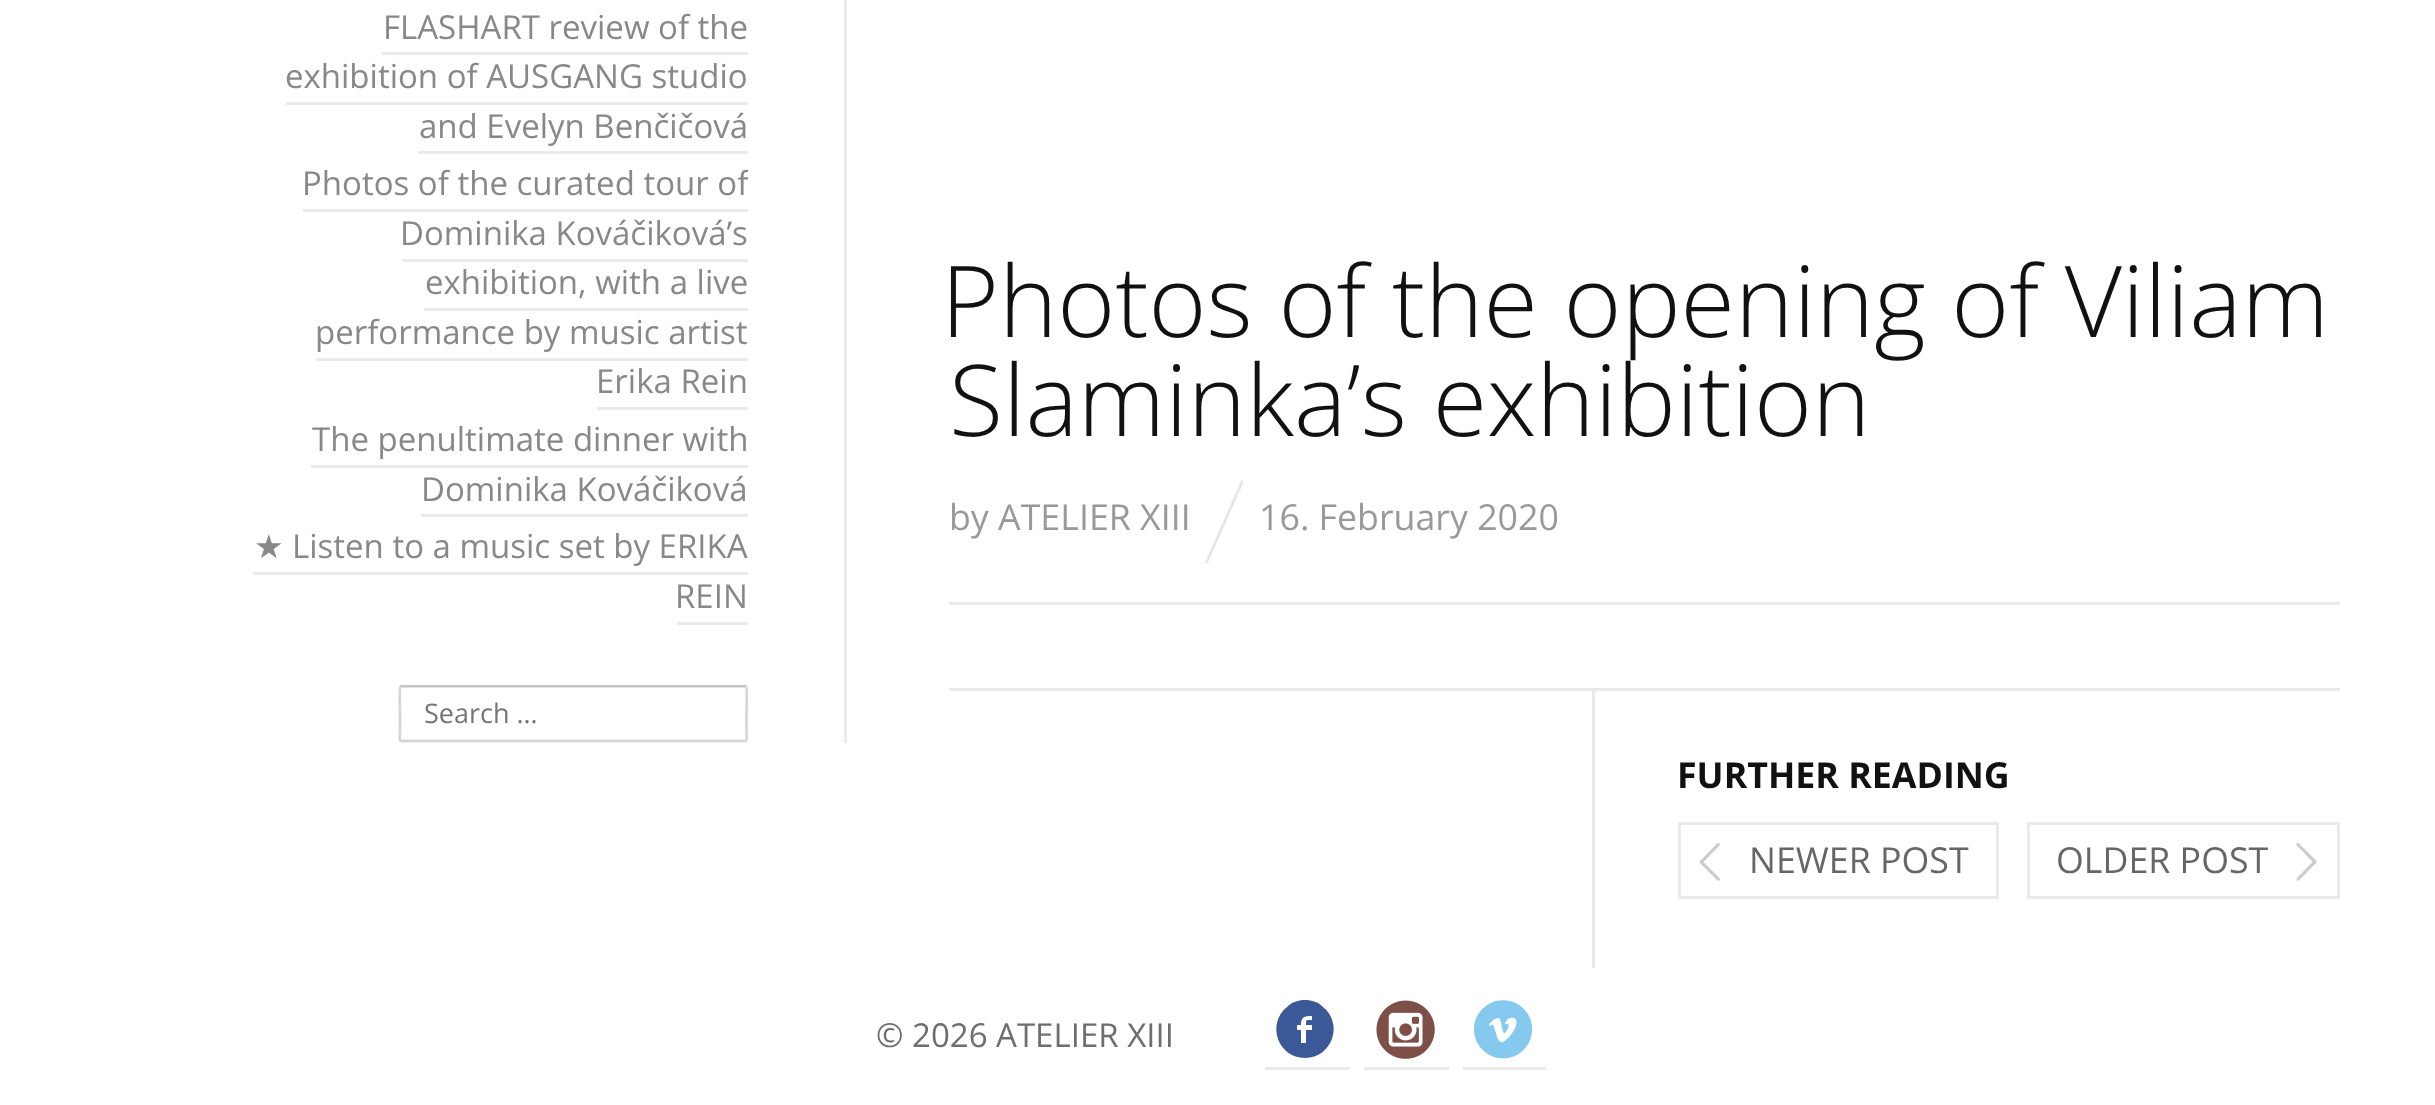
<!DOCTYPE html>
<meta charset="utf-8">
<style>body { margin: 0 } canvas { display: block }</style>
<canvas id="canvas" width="2435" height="1105"></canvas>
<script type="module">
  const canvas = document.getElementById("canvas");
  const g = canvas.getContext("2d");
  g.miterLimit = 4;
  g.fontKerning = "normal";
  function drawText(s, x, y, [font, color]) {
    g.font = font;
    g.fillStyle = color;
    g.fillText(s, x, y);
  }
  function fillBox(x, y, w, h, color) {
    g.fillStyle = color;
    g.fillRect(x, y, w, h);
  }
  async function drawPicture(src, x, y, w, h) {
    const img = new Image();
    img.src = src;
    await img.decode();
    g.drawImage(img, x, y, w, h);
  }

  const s1 = ["33px Open Sans", "#888888"];
  const s2 = ["33px DejaVu Sans", "#888888"];
  const s3 = ["27px Open Sans", "#757575"];
  const s4 = ["300 99px Open Sans", "#111111"];
  const s5 = ["35.75px Open Sans", "#999999"];
  const s6 = ["bold 35.75px Open Sans", "#111111"];
  const s7 = ["35.75px Open Sans", "#666666"];
  const s8 = ["33px Open Sans", "#6E6E6E"];

  fillBox(0, 0, 2435, 1105, "#FFFFFF");
  fillBox(844, 0, 3, 743, "#EBEBEB");
  drawText("FLASHART review of the", 383, 39, s1);
  drawText("exhibition of AUSGANG studio", 285, 88, s1);
  fillBox(382, 52, 366, 3, "#EAEAEA");
  drawText("and Evelyn Benčičová", 419, 138, s1);
  fillBox(286, 102, 462, 3, "#EAEAEA");
  fillBox(418, 151, 330, 3, "#EAEAEA");
  g.save();
  g.beginPath();
  g.rect(253, 0, 495, 630);
  g.clip();
  drawText("Photos of the curated tour of", 302, 195, s1);
  g.restore();
  drawText("Dominika Kováčiková’s", 400, 245, s1);
  fillBox(303, 209, 445, 3, "#EAEAEA");
  drawText("exhibition, with a live", 425, 294, s1);
  fillBox(402, 259, 346, 3, "#EAEAEA");
  drawText("performance by music artist", 315, 344, s1);
  fillBox(424, 308, 324, 3, "#EAEAEA");
  drawText("Erika Rein", 596, 393, s1);
  fillBox(316, 358, 432, 3, "#EAEAEA");
  fillBox(597, 407, 151, 3, "#EAEAEA");
  drawText("The penultimate dinner with", 312, 451, s1);
  drawText("Dominika Kováčiková", 421, 501, s1);
  fillBox(311, 465, 437, 3, "#EAEAEA");
  fillBox(421, 514, 327, 3, "#EAEAEA");
  drawText("★", 254, 558, s2);
  drawText("Listen to a music set by ERIKA", 292, 558, s1);
  drawText("REIN", 675, 608, s1);
  fillBox(253, 572, 495, 3, "#EAEAEA");
  fillBox(677, 622, 71, 3, "#EAEAEA");
  g.save();
  g.beginPath();
  g.rect(253, 685, 495, 58);
  g.clip();
  g.beginPath();
  g.moveTo(400.5, 686.5);
  g.lineTo(401.5, 686);
  g.lineTo(745, 686);
  g.lineTo(746, 686.5);
  g.strokeStyle = "#C5C5C5";
  g.lineWidth = 2.8;
  g.stroke();
  g.beginPath();
  g.moveTo(746, 686.5);
  g.bezierCurveTo(747.5, 688, 746.5, 710.5, 746.5, 713.5);
  g.lineTo(746.5, 731);
  g.bezierCurveTo(746.5, 733.5, 748, 741, 745, 741);
  g.lineTo(401.5, 741);
  g.bezierCurveTo(398.5, 741, 400, 733.5, 400, 731);
  g.lineTo(400, 713.5);
  g.bezierCurveTo(400, 710.5, 399, 688, 400.5, 686.5);
  g.strokeStyle = "#D7D7D7";
  g.stroke();
  g.restore();
  drawText("Search …", 424, 723, s3);
  fillBox(949, 602, 1391, 3, "#EAEAEA");
  drawText("Photos of the opening of Viliam", 941, 337, s4);
  drawText("Slaminka’s exhibition", 949, 436, s4);
  drawText("by ATELIER XIII", 949, 530, s5);
  await drawPicture("pic1.png", 1204, 480, 40, 84);
  drawText("16. February 2020", 1259, 530, s5);
  fillBox(949, 688, 1391, 3, "#EAEAEA");
  fillBox(1592, 690, 3, 278, "#EAEAEA");
  drawText("FURTHER READING", 1677, 788, s6);
  g.strokeStyle = "#EAEAEA";
  g.lineWidth = 3;
  g.strokeRect(1679.5, 823.5, 318, 74);
  g.fillStyle = "#CCCCCC";
  g.beginPath();
  g.moveTo(1719.5, 878);
  g.lineTo(1720, 879.5);
  g.bezierCurveTo(1719, 883.5, 1714.5, 877.5, 1714.5, 877.5);
  g.lineTo(1699.5, 862.5);
  g.lineTo(1699.5, 861.5);
  g.lineTo(1700, 861);
  g.lineTo(1717.5, 843);
  g.lineTo(1718.5, 843);
  g.bezierCurveTo(1722.5, 844, 1717.5, 847.5, 1717, 848);
  g.lineTo(1703.5, 862);
  g.closePath();
  g.fill();
  drawText("NEWER POST", 1749, 873, s7);
  g.strokeRect(2028.5, 823.5, 310, 74);
  drawText("OLDER POST", 2056, 873, s7);
  g.fillStyle = "#CCCCCC";
  g.beginPath();
  g.moveTo(2297, 878);
  g.lineTo(2312.5, 862);
  g.lineTo(2299.5, 848);
  g.bezierCurveTo(2299, 847.5, 2294, 844, 2297.5, 843);
  g.lineTo(2298.5, 843);
  g.lineTo(2316.5, 861);
  g.lineTo(2316.5, 861.5);
  g.lineTo(2316.5, 862.5);
  g.lineTo(2302, 877.5);
  g.bezierCurveTo(2301.5, 877.5, 2297.5, 883.5, 2296.5, 879.5);
  g.closePath();
  g.fill();
  drawText("© 2026 ATELIER XIII", 876, 1047, s8);
  fillBox(1265, 1067, 85, 3, "#EAEAEA");
  g.fillStyle = "#3B5998";
  g.beginPath();
  g.moveTo(1305, 1000);
  g.bezierCurveTo(1312, 1000, 1318, 1002, 1323, 1007);
  g.bezierCurveTo(1344, 1024, 1332, 1058, 1305, 1058);
  g.bezierCurveTo(1278, 1058, 1266, 1024, 1287, 1007);
  g.bezierCurveTo(1292, 1002, 1298, 1000, 1305, 1000);
  g.closePath();
  g.moveTo(1312, 1020);
  g.lineTo(1312, 1016);
  g.bezierCurveTo(1304, 1016, 1301, 1017, 1301, 1025);
  g.lineTo(1297, 1025);
  g.lineTo(1297, 1030);
  g.lineTo(1301, 1030);
  g.lineTo(1301, 1043);
  g.lineTo(1306, 1043);
  g.lineTo(1306, 1030);
  g.lineTo(1312, 1030);
  g.lineTo(1312, 1025);
  g.lineTo(1306, 1025);
  g.bezierCurveTo(1306, 1019, 1306, 1020, 1312, 1020);
  g.closePath();
  g.fill();
  fillBox(1364, 1067, 85, 3, "#EAEAEA");
  await drawPicture("pic2.png", 1376, 1000, 59, 59);
  fillBox(1463, 1067, 83, 3, "#EAEAEA");
  await drawPicture("pic3.png", 1474, 1000, 59, 59);
</script>
